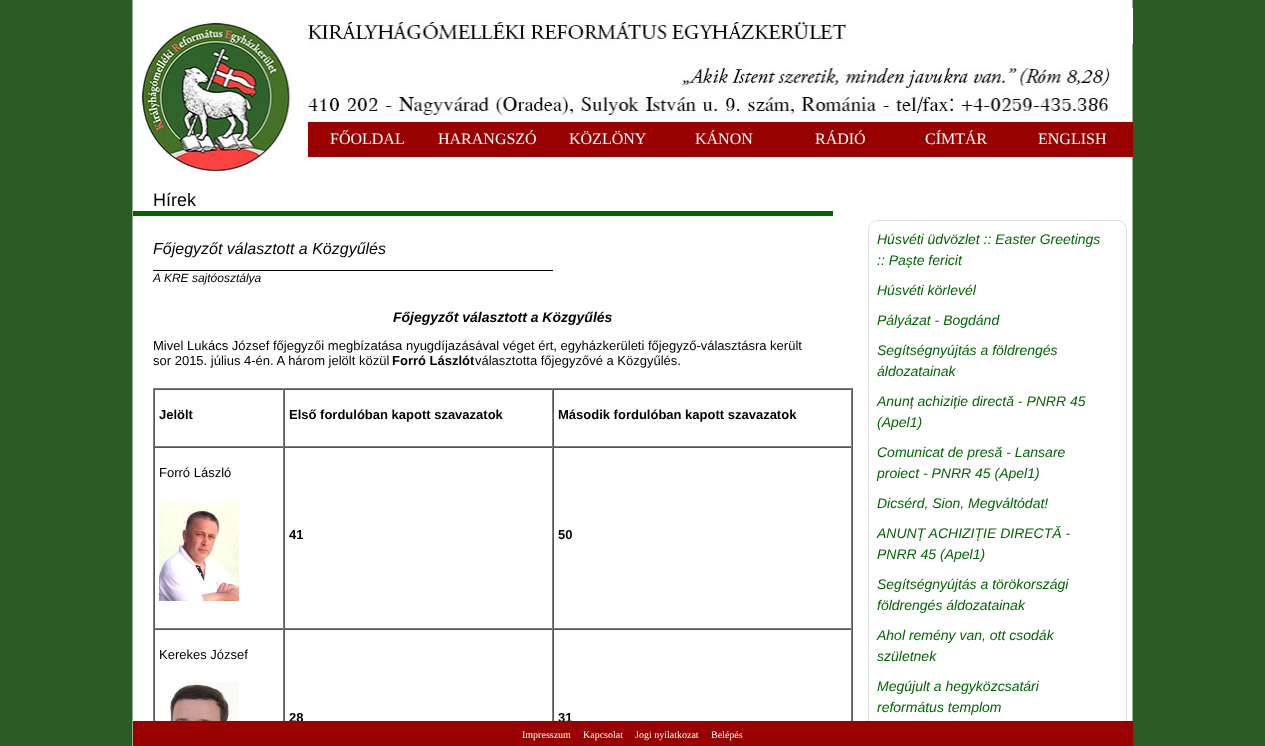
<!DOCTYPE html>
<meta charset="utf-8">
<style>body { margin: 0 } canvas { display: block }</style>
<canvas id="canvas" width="1265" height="746"></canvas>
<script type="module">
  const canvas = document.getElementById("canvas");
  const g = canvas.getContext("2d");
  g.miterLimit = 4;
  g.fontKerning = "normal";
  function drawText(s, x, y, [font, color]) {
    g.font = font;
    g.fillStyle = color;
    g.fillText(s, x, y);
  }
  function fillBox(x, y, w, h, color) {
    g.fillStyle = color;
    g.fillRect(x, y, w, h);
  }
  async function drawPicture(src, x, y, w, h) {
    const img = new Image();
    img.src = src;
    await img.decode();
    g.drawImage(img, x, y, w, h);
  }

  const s1 = ["16px Liberation Serif", "#FFFFFF"];
  const s2 = ["18px Liberation Sans", "#000000"];
  const s3 = ["italic 16px Liberation Sans", "#000000"];
  const s4 = ["italic 14px Liberation Sans", "#006600"];
  const s5 = ["italic 12px Liberation Sans", "#000000"];
  const s6 = ["italic bold 14px Liberation Sans", "#000000"];
  const s7 = ["13px Liberation Sans", "#000000"];
  const s8 = ["bold 13px Liberation Sans", "#000000"];
  const s9 = ["10px Liberation Serif", "#FFFFFF"];

  fillBox(0, 0, 1265, 746, "#FFFFFF");
  await drawPicture("pic1.png", 0, 0, 1265, 746);
  fillBox(1132, 8, 1, 36, "#FFFFFF");
  await drawPicture("pic2.png", 141, 22, 971, 150);
  fillBox(308, 122, 825, 35, "#990000");
  drawText("FŐOLDAL", 330, 144, s1);
  drawText("HARANGSZÓ", 438, 144, s1);
  drawText("KÖZLÖNY", 569, 144, s1);
  drawText("KÁNON", 695, 144, s1);
  drawText("RÁDIÓ", 815, 144, s1);
  drawText("CÍMTÁR", 925, 144, s1);
  drawText("ENGLISH", 1038, 144, s1);
  fillBox(133, 211, 700, 5, "#006600");
  drawText("Hírek", 153, 206, s2);
  drawText("Főjegyzőt választott a Közgyűlés", 153, 254, s3);
  g.beginPath();
  g.roundRect(868.5, 220.5, 258, 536, 9.5);
  g.strokeStyle = "#DDDDDD";
  g.stroke();
  g.fillStyle = "#FFFFFF";
  g.beginPath();
  g.moveTo(878, 221);
  g.lineTo(1109, 221);
  g.lineTo(1109, 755);
  g.lineTo(878, 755);
  g.bezierCurveTo(873, 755, 869, 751, 869, 746);
  g.lineTo(869, 230);
  g.bezierCurveTo(869, 225, 873, 221, 878, 221);
  g.closePath();
  g.fill();
  drawText("Húsvéti üdvözlet :: Easter Greetings", 877, 244, s4);
  drawText(":: Paște fericit", 877, 265, s4);
  drawText("Húsvéti körlevél", 877, 295, s4);
  drawText("Pályázat - Bogdánd", 877, 325, s4);
  drawText("Segítségnyújtás a földrengés", 877, 355, s4);
  drawText("áldozatainak", 877, 376, s4);
  drawText("Anunț achiziție directă - PNRR 45", 877, 406, s4);
  drawText("(Apel1)", 877, 427, s4);
  drawText("Comunicat de presă - Lansare", 877, 457, s4);
  drawText("proiect - PNRR 45 (Apel1)", 877, 478, s4);
  drawText("Dicsérd, Sion, Megváltódat!", 877, 508, s4);
  drawText("ANUNȚ ACHIZIȚIE DIRECTĂ -", 877, 538, s4);
  drawText("PNRR 45 (Apel1)", 877, 559, s4);
  drawText("Segítségnyújtás a törökországi", 877, 589, s4);
  drawText("földrengés áldozatainak", 877, 610, s4);
  drawText("Ahol remény van, ott csodák", 877, 640, s4);
  drawText("születnek", 877, 661, s4);
  drawText("Megújult a hegyközcsatári", 877, 691, s4);
  drawText("református templom", 877, 712, s4);
  fillBox(153, 270, 400, 1, "#000000");
  drawText("A KRE sajtóosztálya", 153, 282, s5);
  drawText("Főjegyzőt választott a Közgyűlés", 393, 322, s6);
  drawText("Mivel Lukács József főjegyzői megbízatása nyugdíjazásával véget ért, egyházkerületi főjegyző-választásra került", 153, 350, s7);
  drawText("sor 2015. július 4-én. A három jelölt közül", 153, 365, s7);
  drawText("Forró Lászlót", 392, 365, s8);
  drawText("választotta főjegyzővé a Közgyűlés.", 475, 365, s7);
  fillBox(153, 388, 700, 1, "#808080");
  fillBox(852, 388, 1, 333, "#555555");
  fillBox(153, 388, 1, 333, "#808080");
  fillBox(154, 389, 698, 1, "#555555");
  fillBox(283, 389, 1, 58, "#808080");
  fillBox(154, 446, 130, 1, "#808080");
  fillBox(154, 389, 1, 58, "#555555");
  drawText("Jelölt", 159, 419, s8);
  fillBox(552, 389, 1, 58, "#808080");
  fillBox(284, 446, 269, 1, "#808080");
  fillBox(284, 389, 1, 58, "#555555");
  drawText("Első fordulóban kapott szavazatok", 289, 419, s8);
  fillBox(851, 389, 1, 58, "#808080");
  fillBox(553, 446, 299, 1, "#808080");
  fillBox(553, 389, 1, 58, "#555555");
  drawText("Második fordulóban kapott szavazatok", 558, 419, s8);
  fillBox(154, 447, 698, 1, "#555555");
  fillBox(283, 447, 1, 182, "#808080");
  fillBox(154, 628, 130, 1, "#808080");
  fillBox(154, 447, 1, 182, "#555555");
  drawText("Forró László", 159, 477, s7);
  await drawPicture("pic3.png", 159, 500, 80, 101);
  fillBox(552, 447, 1, 182, "#808080");
  fillBox(284, 628, 269, 1, "#808080");
  fillBox(284, 447, 1, 182, "#555555");
  drawText("41", 289, 539, s8);
  fillBox(851, 447, 1, 182, "#808080");
  fillBox(553, 628, 299, 1, "#808080");
  fillBox(553, 447, 1, 182, "#555555");
  drawText("50", 558, 539, s8);
  fillBox(154, 629, 698, 1, "#555555");
  fillBox(283, 629, 1, 92, "#808080");
  fillBox(154, 629, 1, 92, "#555555");
  drawText("Kerekes József", 159, 659, s7);
  await drawPicture("pic4.png", 167, 682, 72, 39);
  fillBox(552, 629, 1, 92, "#808080");
  fillBox(284, 629, 1, 92, "#555555");
  drawText("28", 289, 722, s8);
  fillBox(851, 629, 1, 92, "#808080");
  fillBox(553, 629, 1, 92, "#555555");
  drawText("31", 558, 722, s8);
  fillBox(133, 721, 1000, 25, "#990000");
  drawText("Impresszum", 522, 738, s9);
  drawText("Kapcsolat", 583, 738, s9);
  drawText("Jogi nyilatkozat", 635, 738, s9);
  drawText("Belépés", 711, 738, s9);
</script>
